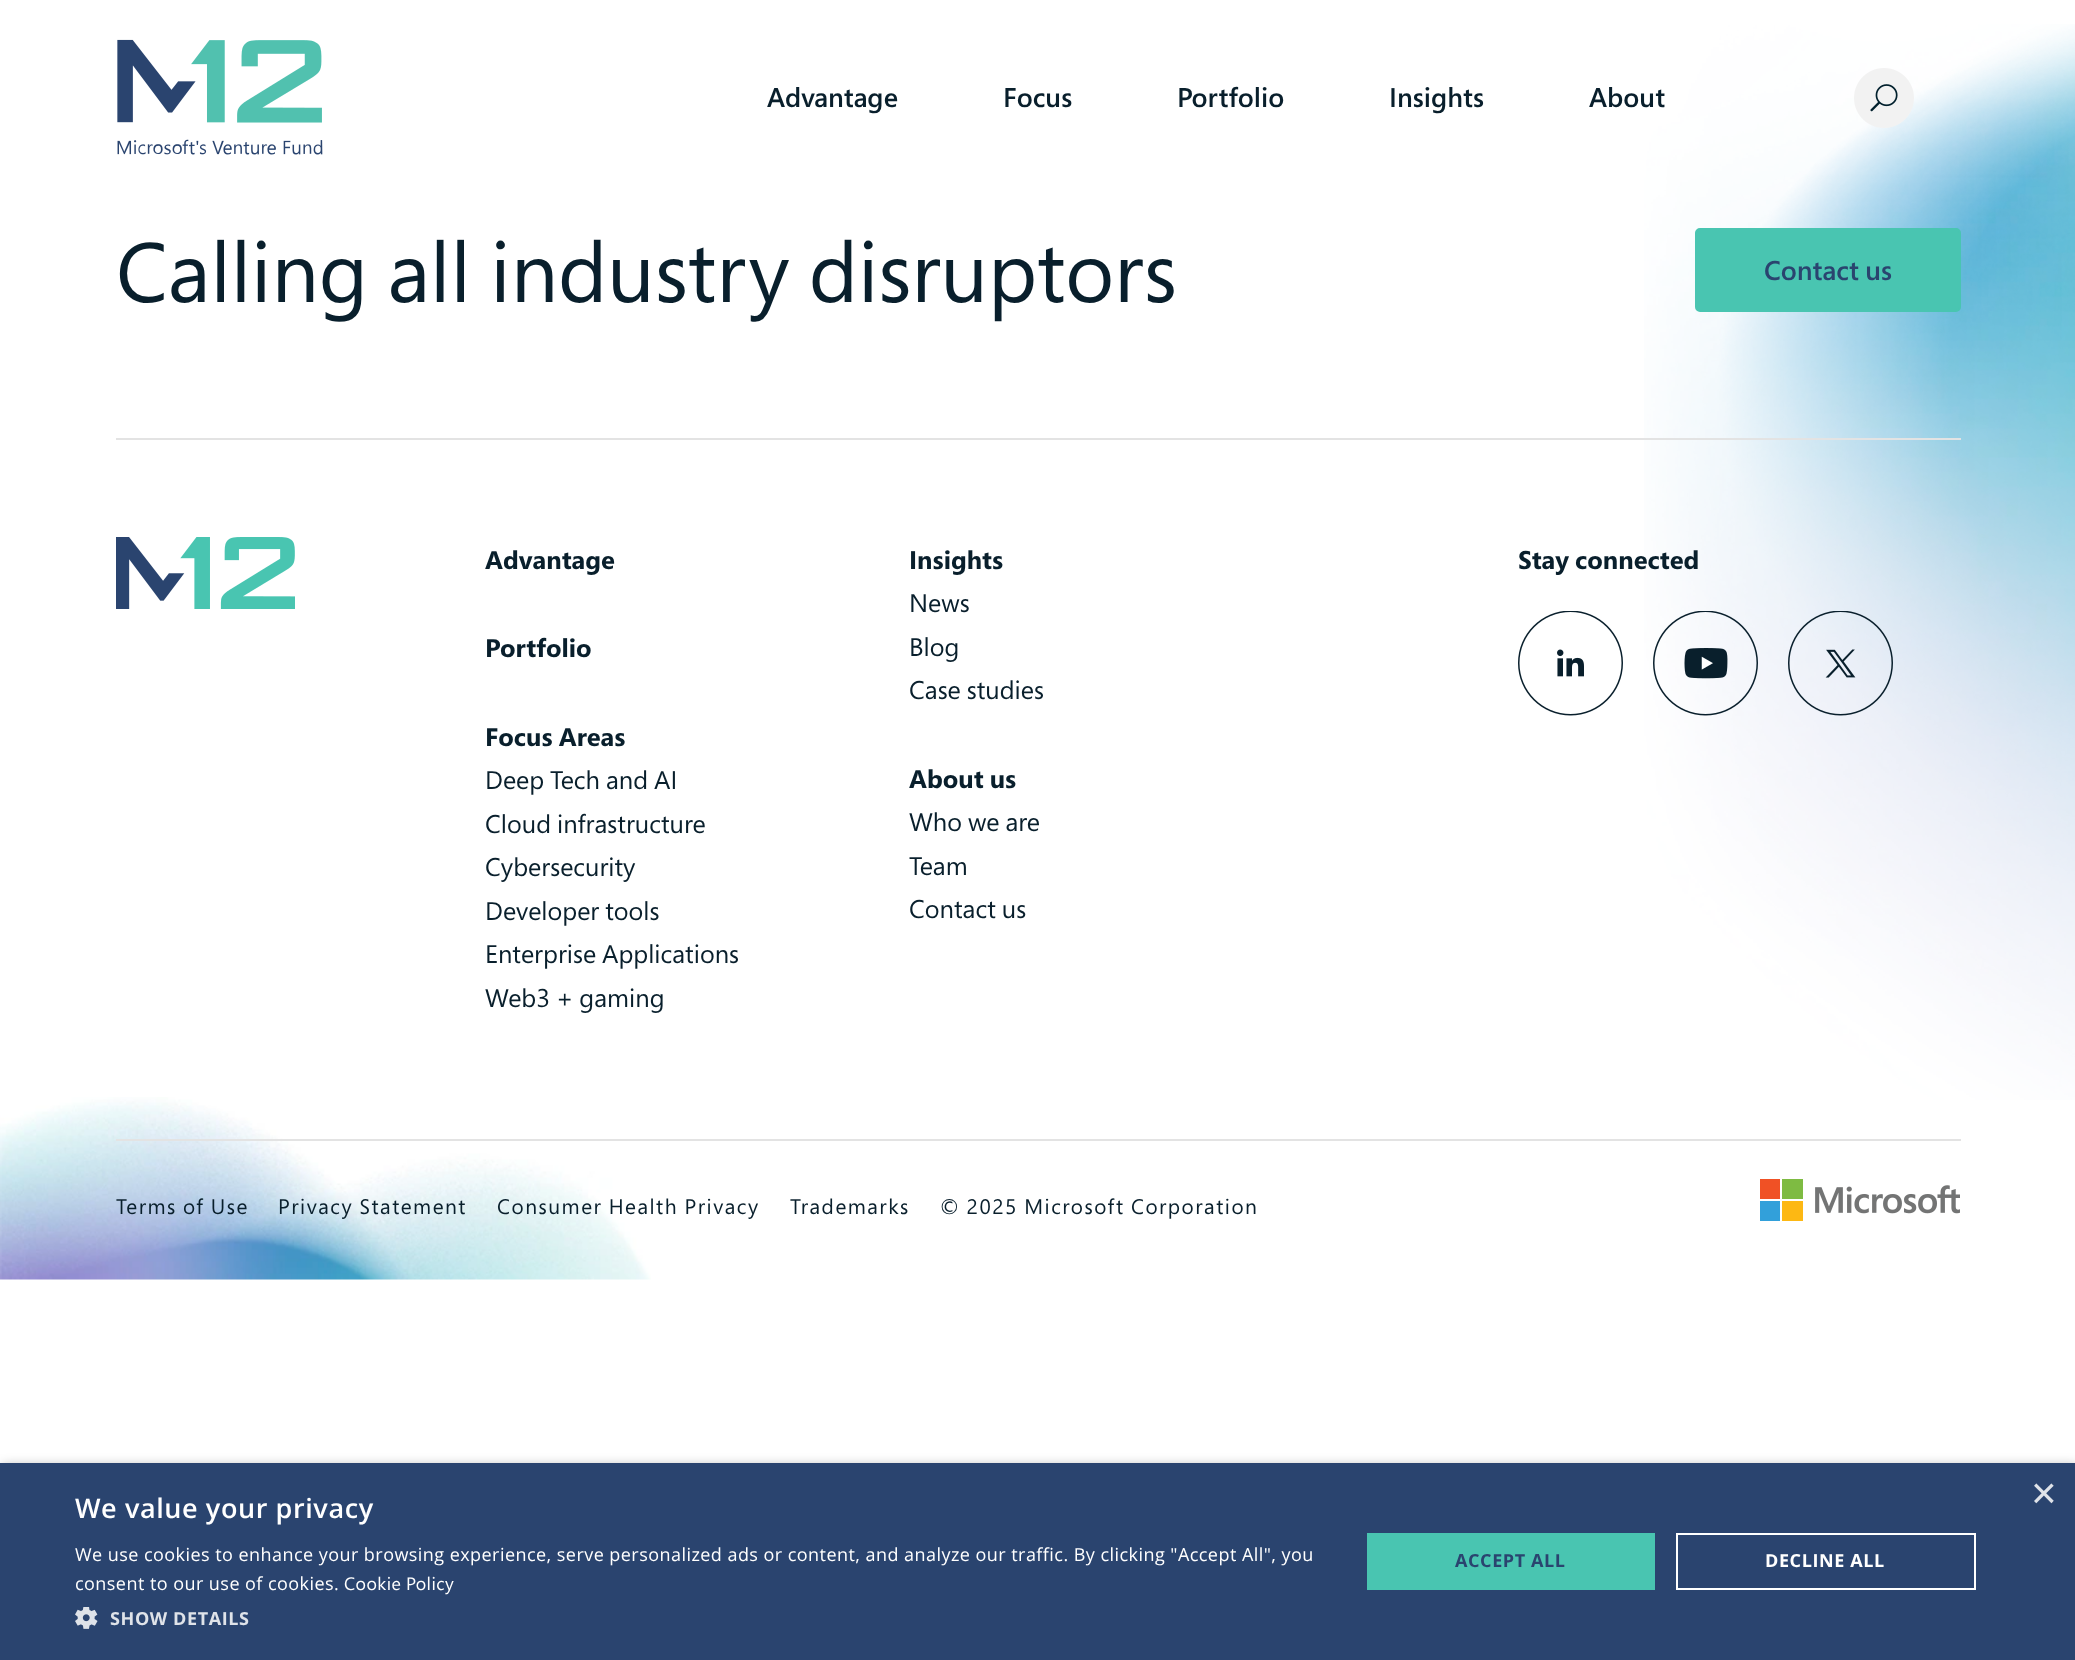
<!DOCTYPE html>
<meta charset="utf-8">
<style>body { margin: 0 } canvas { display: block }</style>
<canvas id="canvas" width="2075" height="1660"></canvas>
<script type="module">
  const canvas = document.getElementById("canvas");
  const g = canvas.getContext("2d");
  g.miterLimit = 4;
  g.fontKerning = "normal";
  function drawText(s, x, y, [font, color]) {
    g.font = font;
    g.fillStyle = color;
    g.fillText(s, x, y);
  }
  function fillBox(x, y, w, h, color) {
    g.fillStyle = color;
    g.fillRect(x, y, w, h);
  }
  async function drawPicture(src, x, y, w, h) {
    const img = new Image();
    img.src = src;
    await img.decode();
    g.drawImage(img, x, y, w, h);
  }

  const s1 = ["600 27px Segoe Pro", "#091F2C"];
  const s2 = ["84px Segoe Pro", "#091F2C"];
  const s3 = ["600 27px Segoe Pro", "#2A446F"];
  const s4 = ["bold 25.5px Segoe Pro", "#091F2C"];
  const s5 = ["25.5px Segoe Pro", "#091F2C"];
  const s6 = ["21px Segoe Pro", "#091F2C"];
  const s7 = ["44px Liberation Sans", "#DFE3E9"];
  const s8 = ["600 27px Open Sans", "#FFFFFF"];
  const s9 = ["18px Open Sans", "#FFFFFF"];
  const s10 = ["18px Segoe Pro", "#FFFFFF"];
  const s11 = ["bold 18px Open Sans", "#DFE3E9"];
  const s12 = ["bold 18px Open Sans", "#2A446F"];
  const s13 = ["bold 18px Open Sans", "#FFFFFF"];

  fillBox(0, 0, 2075, 1660, "#FFFFFF");
  await drawPicture("pic1.png", 1644, 24, 431, 1076);
  await drawPicture("pic2.png", 117, 39, 206, 116);
  drawText("Advantage", 767, 107, s1);
  drawText("Focus", 1003, 107, s1);
  drawText("Portfolio", 1177, 107, s1);
  drawText("Insights", 1389, 107, s1);
  drawText("About", 1589, 107, s1);
  await drawPicture("pic3.png", 1854, 68, 60, 60);
  drawText("Calling all industry disruptors", 116, 302, s2);
  g.fillStyle = "#49C5B1";
  g.beginPath();
  g.roundRect(1696, 229, 264, 82, 4);
  g.fill();
  g.strokeStyle = "#49C5B1";
  g.lineWidth = 2;
  g.stroke();
  drawText("Contact us", 1764, 280, s3);
  fillBox(116, 438, 1845, 2, "#E3E3E3");
  await drawPicture("pic4.png", 116, 537, 179, 72);
  drawText("Advantage", 485, 569, s4);
  drawText("Portfolio", 485, 657, s4);
  drawText("Focus Areas", 485, 746, s4);
  drawText("Deep Tech and AI", 485, 789, s5);
  drawText("Cloud infrastructure", 485, 833, s5);
  drawText("Cybersecurity", 485, 876, s5);
  drawText("Developer tools", 485, 920, s5);
  drawText("Enterprise Applications", 485, 963, s5);
  drawText("Web3 + gaming", 485, 1007, s5);
  drawText("Insights", 909, 569, s4);
  drawText("News", 909, 612, s5);
  drawText("Blog", 909, 656, s5);
  drawText("Case studies", 909, 699, s5);
  drawText("About us", 909, 788, s4);
  drawText("Who we are", 909, 831, s5);
  drawText("Team", 909, 875, s5);
  drawText("Contact us", 909, 918, s5);
  drawText("Stay connected", 1518, 569, s4);
  await drawPicture("pic5.png", 1518, 611, 105, 105);
  await drawPicture("pic6.png", 1653, 611, 105, 105);
  await drawPicture("pic7.png", 1788, 611, 105, 105);
  await drawPicture("pic8.png", 0, 1097, 651, 183);
  fillBox(116, 1139, 1845, 2, "#E3E3E3");
  g.letterSpacing = "1.5px";
  drawText("Terms of Use", 116, 1214, s6);
  drawText("Privacy Statement", 278, 1214, s6);
  drawText("Consumer Health Privacy", 497, 1214, s6);
  drawText("Trademarks", 790, 1214, s6);
  drawText("© 2025 Microsoft Corporation", 940, 1214, s6);
  await drawPicture("pic9.png", 1760, 1179, 200, 42);
  g.fillStyle = "rgba(0, 0, 0, 0.35)";
  g.filter = "blur(6px)";
  g.beginPath();
  g.rect(2, 1466, 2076, 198);
  g.fill();
  g.filter = "none";
  fillBox(0, 1463, 2075, 197, "#2A446F");
  g.letterSpacing = "0px";
  drawText("×", 2031, 1508, s7);
  g.letterSpacing = "0.6px";
  drawText("We value your privacy", 75, 1518, s8);
  g.letterSpacing = "0.45px";
  drawText("We use cookies to enhance your browsing experience, serve personalized ads or content, and analyze our traffic. By clicking \"Accept All\", you", 75, 1561, s9);
  drawText("consent to our use of cookies.", 75, 1590, s9);
  drawText("Cookie Policy", 344, 1590, s10);
  await drawPicture("pic10.png", 75, 1607, 23, 22);
  g.letterSpacing = "0.6px";
  drawText("SHOW DETAILS", 110, 1625, s11);
  fillBox(1367, 1533, 288, 57, "#49C5B1");
  drawText("ACCEPT ALL", 1455, 1567, s12);
  g.strokeStyle = "#FFFFFF";
  g.strokeRect(1677, 1534, 298, 55);
  drawText("DECLINE ALL", 1765, 1567, s13);
</script>
